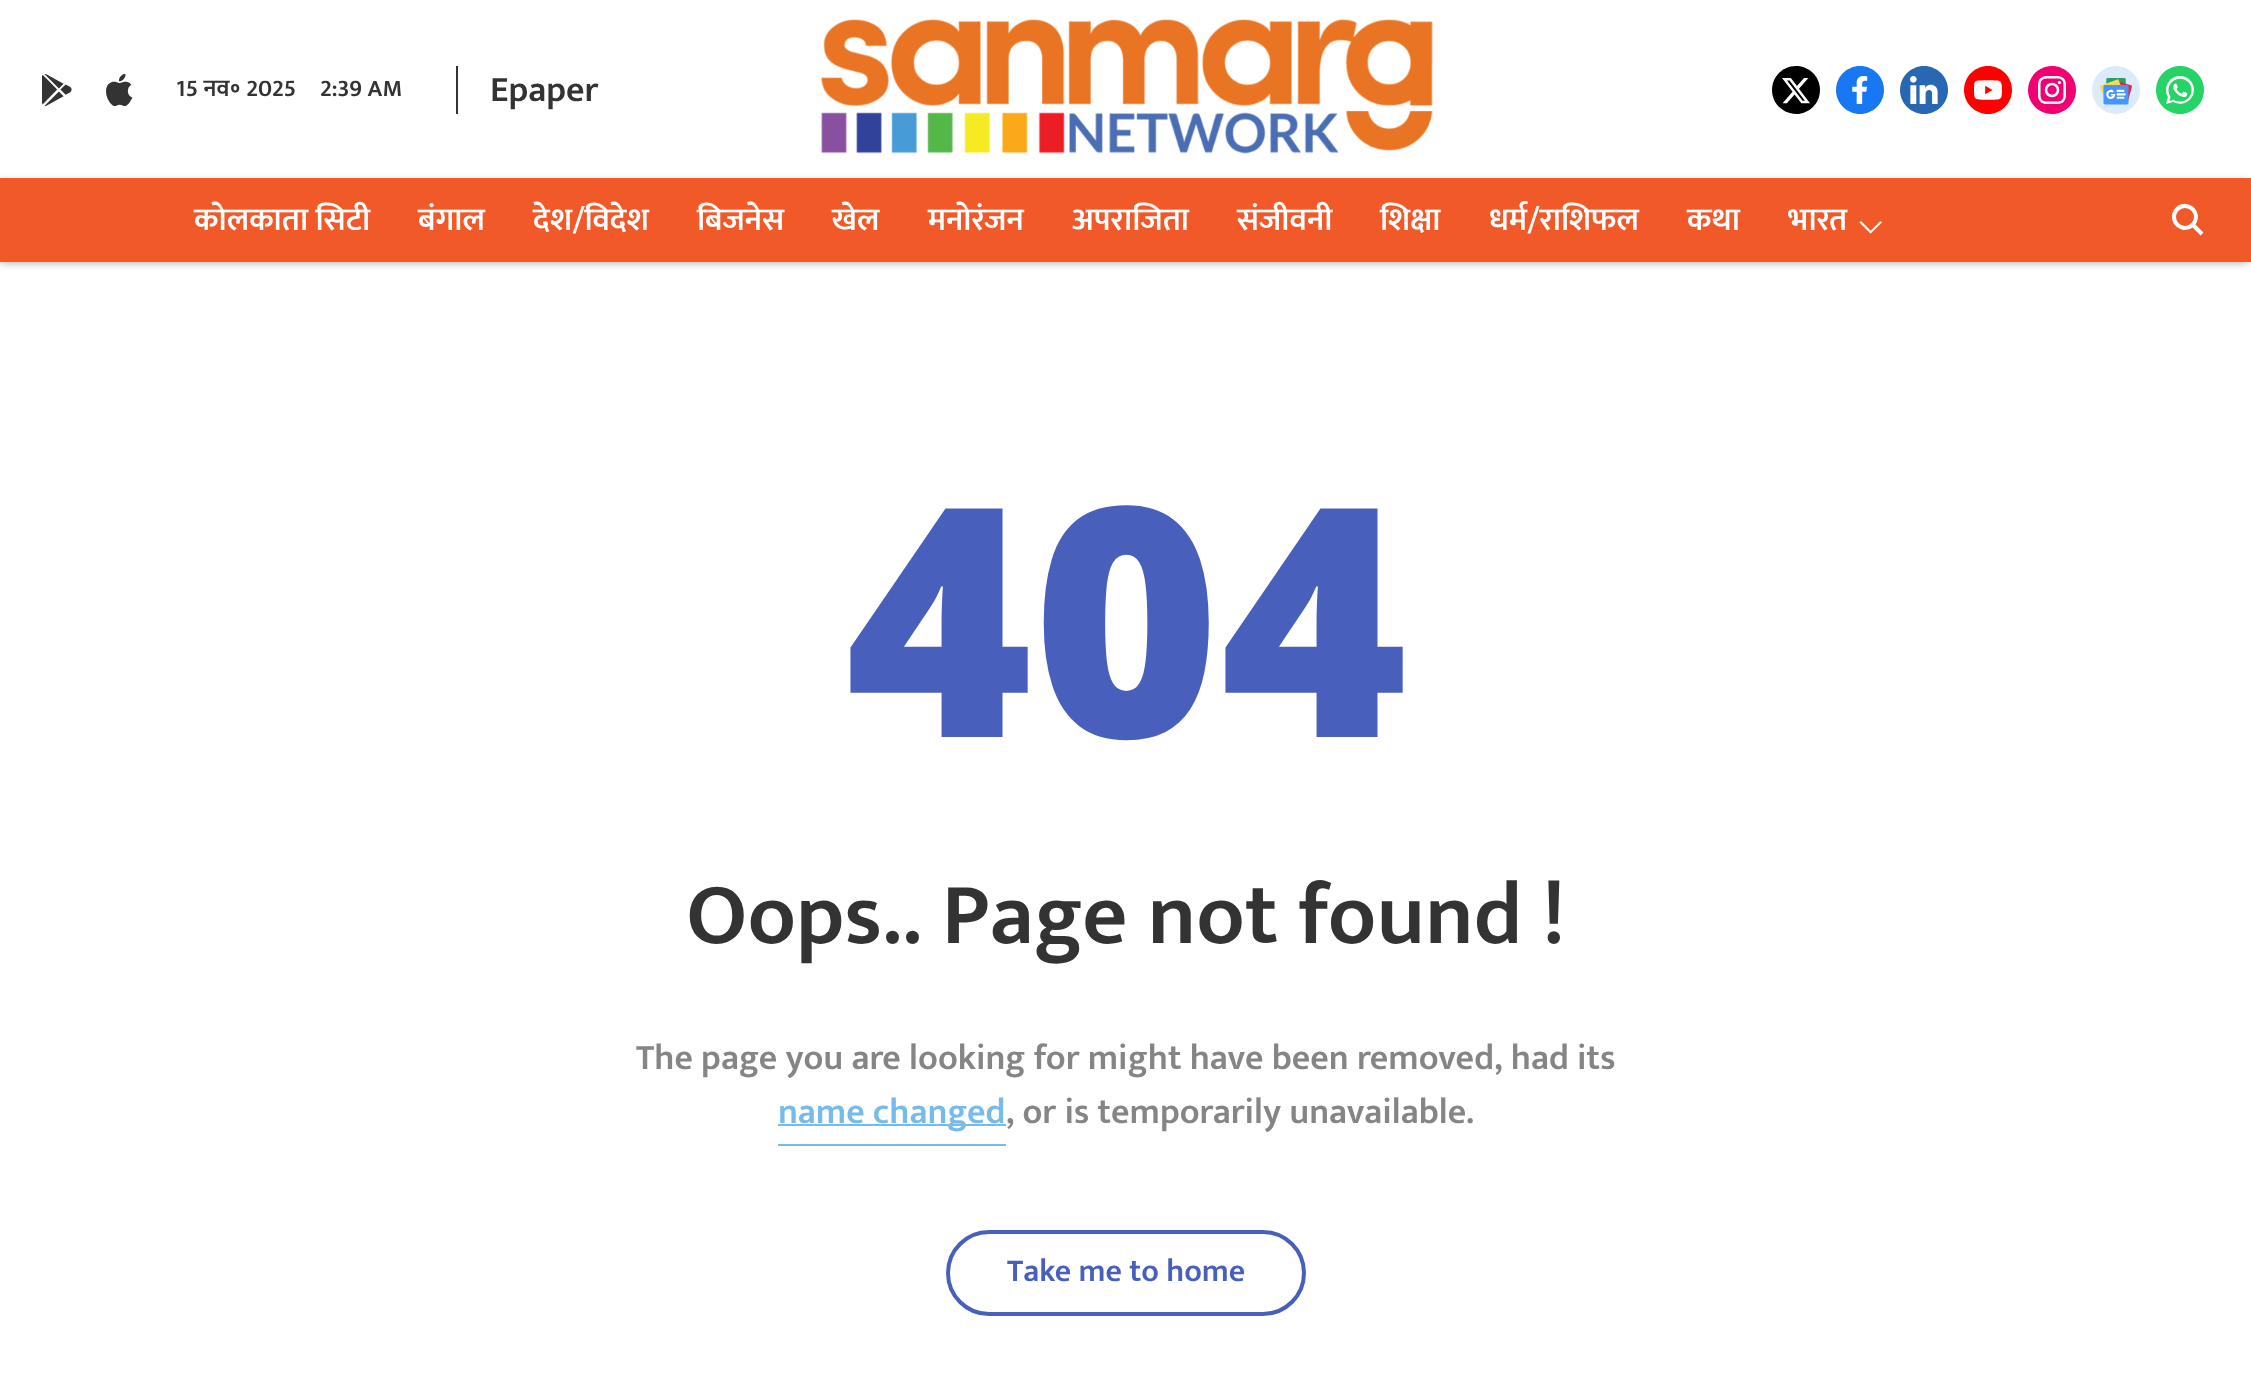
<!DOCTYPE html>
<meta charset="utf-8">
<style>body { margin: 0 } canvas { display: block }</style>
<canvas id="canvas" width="2251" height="1379"></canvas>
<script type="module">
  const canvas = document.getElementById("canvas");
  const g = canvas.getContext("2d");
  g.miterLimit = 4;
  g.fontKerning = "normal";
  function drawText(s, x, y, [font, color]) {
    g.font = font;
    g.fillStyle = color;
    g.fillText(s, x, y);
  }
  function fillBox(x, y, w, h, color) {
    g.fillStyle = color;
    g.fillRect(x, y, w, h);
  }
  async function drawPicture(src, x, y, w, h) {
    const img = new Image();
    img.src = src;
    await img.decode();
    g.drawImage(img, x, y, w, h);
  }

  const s1 = ["600 24px Mukta", "#333333"];
  const s2 = ["600 36px Mukta", "#333333"];
  const s3 = ["600 32px Mukta", "#FFFFFF"];
  const s4 = ["800 320px Open Sans", "#4860BC"];
  const s5 = ["600 88px Mukta", "#333333"];
  const s6 = ["600 36px Mukta", "#858585"];
  const s7 = ["600 36px Mukta", "#76BBEB"];
  const s8 = ["600 32px Mukta", "#4860BC"];

  fillBox(0, 0, 2251, 1379, "#FFFFFF");
  await drawPicture("pic1.png", 42, 74, 30, 32);
  await drawPicture("pic2.png", 106, 74, 27, 32);
  drawText("15 नव॰ 2025", 176, 96, s1);
  drawText("2:39 AM", 320, 96, s1);
  fillBox(456, 66, 2, 48, "#333333");
  drawText("Epaper", 490, 101, s2);
  await drawPicture("pic3.png", 821, 19, 612, 135);
  await drawPicture("pic4.png", 1772, 66, 48, 48);
  await drawPicture("pic5.png", 1836, 66, 48, 48);
  await drawPicture("pic6.png", 1900, 66, 48, 48);
  await drawPicture("pic7.png", 1964, 66, 48, 48);
  await drawPicture("pic8.png", 2028, 66, 48, 48);
  await drawPicture("pic9.png", 2092, 66, 48, 48);
  await drawPicture("pic10.png", 2156, 66, 48, 48);
  g.fillStyle = "rgba(0, 0, 0, 0.39)";
  g.filter = "blur(4px)";
  g.beginPath();
  g.rect(0, 182, 2248, 80);
  g.fill();
  g.filter = "none";
  fillBox(0, 178, 2251, 84, "#F15929");
  drawText("कोलकाता सिटी", 194, 230, s3);
  drawText("बंगाल", 418, 230, s3);
  drawText("देश/विदेश", 533, 230, s3);
  drawText("बिजनेस", 697, 230, s3);
  drawText("खेल", 832, 230, s3);
  drawText("मनोरंजन", 928, 230, s3);
  drawText("अपराजिता", 1072, 230, s3);
  drawText("संजीवनी", 1237, 230, s3);
  drawText("शिक्षा", 1380, 230, s3);
  drawText("धर्म/राशिफल", 1489, 230, s3);
  drawText("कथा", 1687, 230, s3);
  drawText("भारत", 1788, 230, s3);
  g.beginPath();
  g.moveTo(1880.5, 221);
  g.lineTo(1882, 222.5);
  g.lineTo(1870.5, 233.5);
  g.lineTo(1869.5, 232);
  g.closePath();
  g.fill();
  g.beginPath();
  g.moveTo(1861, 221);
  g.lineTo(1872, 232);
  g.lineTo(1870.5, 233.5);
  g.lineTo(1859.5, 222.5);
  g.closePath();
  g.fill();
  await drawPicture("pic11.png", 2171, 203, 33, 33);
  drawText("404", 845, 737, s4);
  drawText("Oops.. Page not found !", 686, 943, s5);
  drawText("The page you are looking for might have been removed, had its", 636, 1069, s6);
  fillBox(778, 1124, 228, 2, "#76BBEB");
  drawText("name changed", 778, 1123, s7);
  fillBox(778, 1144, 228, 2, "#76BBEB");
  drawText(", or is temporarily unavailable.", 1006, 1123, s6);
  g.beginPath();
  g.roundRect(948, 1232, 356, 82, 41);
  g.strokeStyle = "#4860BC";
  g.lineWidth = 4;
  g.stroke();
  drawText("Take me to home", 1007, 1281, s8);
</script>
